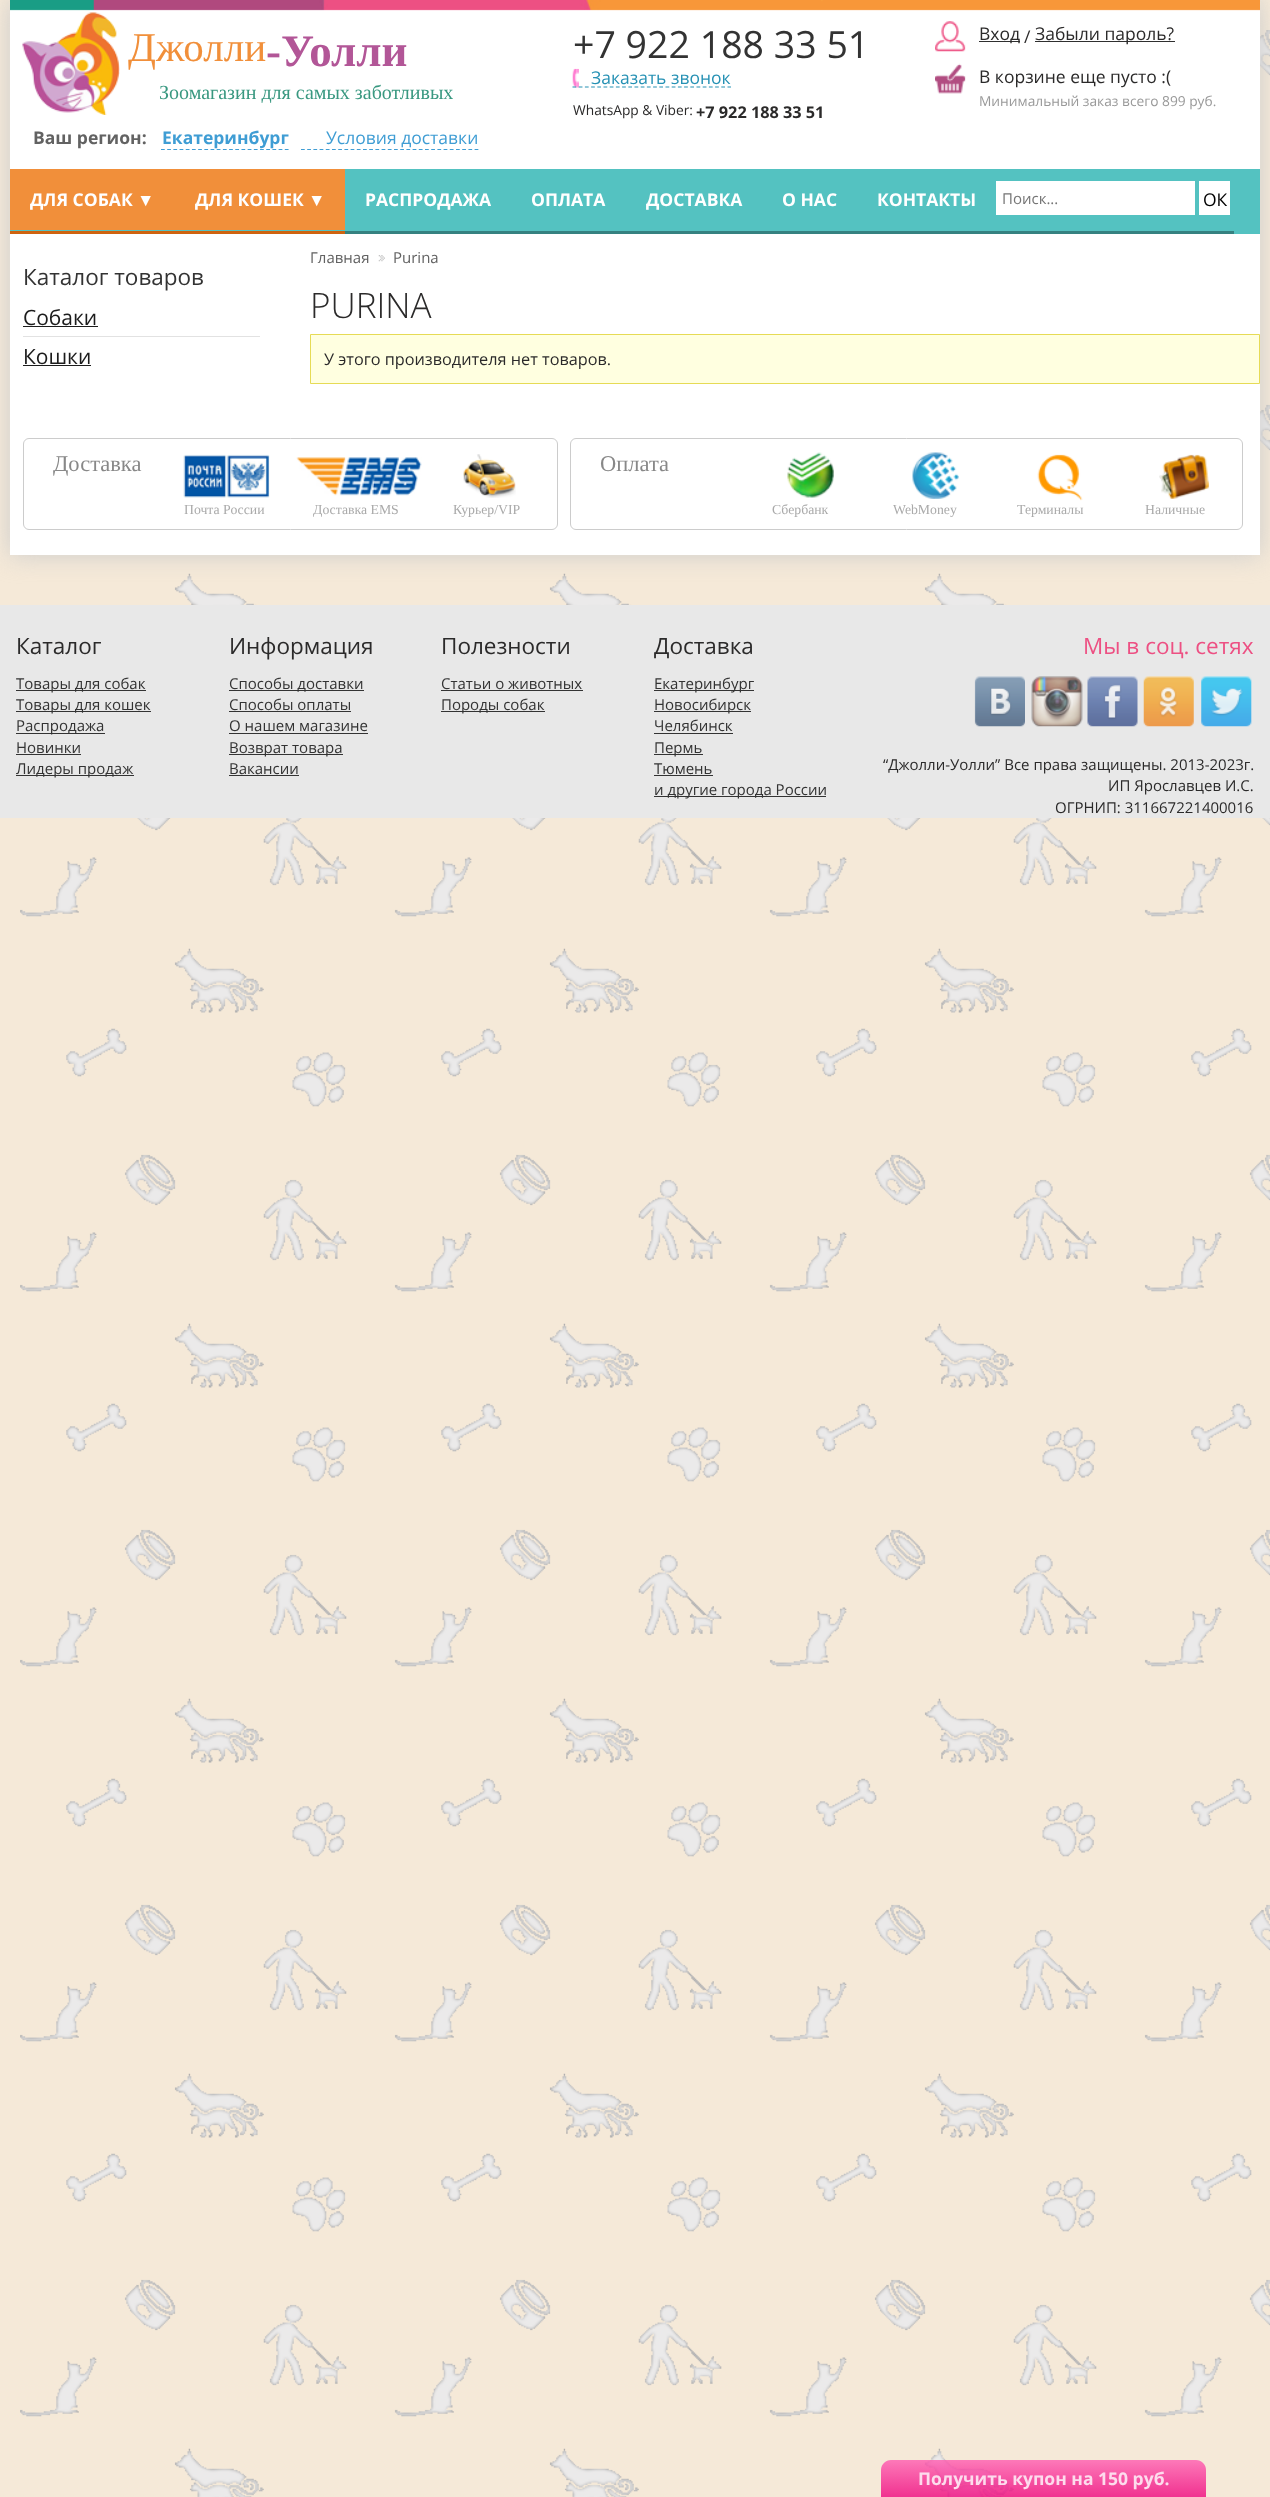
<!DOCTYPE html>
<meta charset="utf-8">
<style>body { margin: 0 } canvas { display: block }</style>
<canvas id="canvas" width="1270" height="2497"></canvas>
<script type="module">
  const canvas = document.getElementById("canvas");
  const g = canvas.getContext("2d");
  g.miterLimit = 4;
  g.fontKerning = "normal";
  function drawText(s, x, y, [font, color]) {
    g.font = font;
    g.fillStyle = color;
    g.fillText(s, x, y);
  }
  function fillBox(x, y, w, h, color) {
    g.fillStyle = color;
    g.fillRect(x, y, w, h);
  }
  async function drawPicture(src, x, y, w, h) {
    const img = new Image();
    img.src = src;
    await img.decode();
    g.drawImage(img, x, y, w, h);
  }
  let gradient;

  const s1 = ["41px Liberation Serif", "#F18F3A"];
  const s2 = ["bold 45px Liberation Serif", "#B25697"];
  const s3 = ["20px Liberation Serif", "#399880"];
  const s4 = ["37.5px Open Sans", "#333333"];
  const s5 = ["17.5px Open Sans", "#2691B4"];
  const s6 = ["13.75px Open Sans", "#2B2A2A"];
  const s7 = ["bold 16.25px Open Sans", "#2B2A2A"];
  const s8 = ["17.5px Open Sans", "#2B2A2A"];
  const s9 = ["13.75px Open Sans", "#999999"];
  const s10 = ["bold 17.5px Open Sans", "#626262"];
  const s11 = ["bold 17.5px Open Sans", "#3F9DD4"];
  const s12 = ["17.5px Open Sans", "#3F9DD4"];
  const s13 = ["bold 17.5px Open Sans", "#FFFFFF"];
  const s14 = ["17.5px Liberation Serif", "#FFFFFF"];
  const s15 = ["15px Open Sans", "#757575"];
  const s16 = ["17.5px Open Sans", "#000000"];
  const s17 = ["22.5px Open Sans", "#333333"];
  const s18 = ["21px Open Sans", "#1C1C1C"];
  const s19 = ["15px Open Sans", "#626262"];
  const s20 = ["300 35px Open Sans", "#2B2A2A"];
  const s21 = ["16.25px Open Sans", "#2B2A2A"];
  const s22 = ["22.5px Liberation Serif", "#888888"];
  const s23 = ["13.75px Liberation Serif", "#AAAAAA"];
  const s24 = ["22.5px Open Sans", "#2B2A2A"];
  const s25 = ["15px Open Sans", "#333333"];
  const s26 = ["22.5px Open Sans", "#ED5083"];
  const s27 = ["15px Open Sans", "#2B2A2A"];
  const s28 = ["bold 17.5px Open Sans", "#FDDCED"];

  fillBox(0, 0, 1270, 2497, "#F5E9D8");
  await drawPicture("pic1.png", 20, 30, 1250, 2467);
  g.fillStyle = "#CCCCCC";
  g.filter = "blur(12.5px)";
  g.beginPath();
  g.rect(10, 0, 1250, 555);
  g.fill();
  g.filter = "none";
  fillBox(10, 9, 1250, 546, "#FFFFFF");
  await drawPicture("pic2.png", 10, 0, 1250, 11);
  await drawPicture("pic3.png", 22, 12, 98, 103);
  drawText("Джолли", 128, 61, s1);
  drawText("-Уолли", 266, 66, s2);
  drawText("Зоомагазин для самых заботливых", 159, 99, s3);
  drawText("+7 922 188 33 51", 573, 58, s4);
  await drawPicture("pic4.png", 572, 68, 7, 20);
  g.beginPath();
  g.moveTo(572.5, 87);
  g.lineTo(731, 87);
  g.strokeStyle = "#2691B4";
  g.lineWidth = 1.2;
  g.setLineDash([3.75, 2.45]);
  g.stroke();
  drawText("Заказать звонок", 591, 84, s5);
  drawText("WhatsApp & Viber:", 573, 115, s6);
  drawText("+7 922 188 33 51", 696, 118, s7);
  await drawPicture("pic5.png", 935, 21, 31, 31);
  fillBox(979, 41, 41, 1, "#2F2F2F");
  drawText("Вход", 979, 40, s8);
  drawText("/", 1024, 43, s8);
  fillBox(1035, 41, 140, 1, "#2F2F2F");
  drawText("Забыли пароль?", 1035, 40, s8);
  await drawPicture("pic6.png", 935, 63, 31, 31);
  drawText("В корзине еще пусто :(", 979, 83, s8);
  drawText("Минимальный заказ всего 899 руб.", 979, 106, s9);
  drawText("Ваш регион:", 33, 144, s10);
  g.beginPath();
  g.moveTo(161, 149.5);
  g.lineTo(289, 149.5);
  g.strokeStyle = "#3F9DD4";
  g.setLineDash([3.75, 2.44]);
  g.stroke();
  drawText("Екатеринбург", 162, 144, s11);
  drawText("Условия доставки", 326, 144, s12);
  g.beginPath();
  g.moveTo(301, 149.5);
  g.lineTo(479, 149.5);
  g.setLineDash([3.75, 2.45]);
  g.stroke();
  fillBox(10, 169, 1250, 65, "#54C2C1");
  fillBox(10, 231, 335, 3, "#CE630F");
  fillBox(10, 169, 335, 61, "#F18F3A");
  drawText("ДЛЯ СОБАК", 30, 206, s13);
  drawText("▼", 137, 206, s14);
  drawText("ДЛЯ КОШЕК", 195, 206, s13);
  drawText("▼", 308, 206, s14);
  fillBox(345, 231, 889, 3, "#358180");
  drawText("РАСПРОДАЖА", 365, 206, s13);
  drawText("ОПЛАТА", 531, 206, s13);
  drawText("ДОСТАВКА", 646, 206, s13);
  drawText("О НАС", 782, 206, s13);
  drawText("КОНТАКТЫ", 877, 206, s13);
  fillBox(996, 181, 199, 34, "#FFFFFF");
  drawText("Поиск...", 1002, 204, s15);
  fillBox(1199, 181, 31, 34, "#FFFFFF");
  drawText("ОК", 1203, 206, s16);
  drawText("Каталог товаров", 23, 285, s17);
  drawText("Собаки", 23, 325, s18);
  fillBox(23, 326, 75, 1, "#1C1C1C");
  fillBox(23, 336, 237, 1, "#E2E2E2");
  drawText("Кошки", 23, 364, s18);
  fillBox(23, 365, 68, 1, "#1C1C1C");
  drawText("Главная", 310, 263, s19);
  await drawPicture("pic7.png", 378, 255, 7, 7);
  drawText("Purina", 393, 263, s19);
  drawText("PURINA", 310, 318, s20);
  g.fillStyle = "#FFFFE0";
  g.beginPath();
  g.rect(310.5, 334.5, 949, 49);
  g.fill();
  g.strokeStyle = "#E6DB55";
  g.lineWidth = 1;
  g.setLineDash([]);
  g.stroke();
  drawText("У этого производителя нет товаров.", 324, 365, s21);
  g.beginPath();
  g.roundRect(23.5, 438.5, 534, 91, 5.5);
  g.strokeStyle = "#CCCCCC";
  g.stroke();
  drawText("Доставка", 53, 471, s22);
  await drawPicture("pic8.png", 183, 454, 87, 44);
  drawText("Почта России", 184, 514, s23);
  await drawPicture("pic9.png", 296, 457, 126, 39);
  drawText("Доставка EMS", 313, 514, s23);
  await drawPicture("pic10.png", 463, 454, 53, 44);
  drawText("Курьер/VIP", 453, 514, s23);
  g.beginPath();
  g.roundRect(570.5, 438.5, 672, 91, 5.5);
  g.stroke();
  drawText("Оплата", 600, 471, s22);
  await drawPicture("pic11.png", 787, 452, 47, 46);
  drawText("Сбербанк", 772, 514, s23);
  await drawPicture("pic12.png", 912, 452, 47, 47);
  drawText("WebMoney", 893, 514, s23);
  await drawPicture("pic13.png", 1037, 454, 46, 47);
  drawText("Терминалы", 1017, 514, s23);
  await drawPicture("pic14.png", 1159, 454, 50, 45);
  drawText("Наличные", 1145, 514, s23);
  fillBox(0, 605, 1270, 213, "#E8E8E8");
  drawText("Каталог", 16, 654, s24);
  fillBox(16, 690, 130, 1, "#333333");
  drawText("Товары для собак", 16, 689, s25);
  fillBox(16, 711, 135, 1, "#333333");
  drawText("Товары для кошек", 16, 710, s25);
  fillBox(16, 733, 89, 1, "#333333");
  drawText("Распродажа", 16, 731, s25);
  drawText("Новинки", 16, 753, s25);
  fillBox(16, 754, 65, 1, "#333333");
  fillBox(16, 775, 118, 1, "#333333");
  drawText("Лидеры продаж", 16, 774, s25);
  drawText("Информация", 229, 654, s24);
  fillBox(229, 690, 135, 1, "#333333");
  drawText("Способы доставки", 229, 689, s25);
  drawText("Способы оплаты", 229, 710, s25);
  fillBox(229, 711, 122, 1, "#333333");
  drawText("О нашем магазине", 229, 731, s25);
  fillBox(229, 733, 139, 1, "#333333");
  fillBox(229, 754, 114, 1, "#333333");
  drawText("Возврат товара", 229, 753, s25);
  drawText("Вакансии", 229, 774, s25);
  fillBox(229, 775, 70, 1, "#333333");
  drawText("Полезности", 441, 654, s24);
  drawText("Статьи о животных", 441, 689, s25);
  fillBox(441, 690, 142, 1, "#333333");
  fillBox(441, 711, 104, 1, "#333333");
  drawText("Породы собак", 441, 710, s25);
  drawText("Доставка", 654, 654, s24);
  fillBox(654, 690, 100, 1, "#333333");
  drawText("Екатеринбург", 654, 689, s25);
  fillBox(654, 711, 97, 1, "#333333");
  drawText("Новосибирск", 654, 710, s25);
  drawText("Челябинск", 654, 731, s25);
  fillBox(654, 733, 79, 1, "#333333");
  fillBox(654, 754, 49, 1, "#333333");
  drawText("Пермь", 654, 753, s25);
  drawText("Тюмень", 654, 774, s25);
  fillBox(654, 775, 59, 1, "#333333");
  fillBox(654, 796, 172, 1, "#333333");
  drawText("и другие города России", 654, 795, s25);
  drawText("Мы в соц. сетях", 1083, 654, s26);
  await drawPicture("pic15.png", 974, 676, 51, 51);
  await drawPicture("pic16.png", 1031, 676, 52, 51);
  await drawPicture("pic17.png", 1087, 676, 51, 51);
  await drawPicture("pic18.png", 1143, 676, 51, 51);
  await drawPicture("pic19.png", 1201, 676, 51, 51);
  drawText("“Джолли-Уолли” Все права защищены. 2013-2023г.", 883, 770, s27);
  drawText("ИП Ярославцев И.С.", 1108, 791, s27);
  drawText("ОГРНИП: 311667221400016", 1055, 813, s27);
  gradient = g.createLinearGradient(1044, 2460, 1044, 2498);
  gradient.addColorStop(0, "rgba(255, 93, 177, 0.8)");
  gradient.addColorStop(1, "rgba(239, 1, 124, 0.8)");
  g.fillStyle = gradient;
  g.beginPath();
  g.moveTo(891, 2460);
  g.lineTo(1196, 2460);
  g.bezierCurveTo(1201.5, 2460, 1206, 2464.5, 1206, 2470);
  g.lineTo(1206, 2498);
  g.lineTo(881, 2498);
  g.lineTo(881, 2470);
  g.bezierCurveTo(881, 2464.5, 885.5, 2460, 891, 2460);
  g.closePath();
  g.fill();
  drawText("Получить купон на 150 руб.", 918, 2485, s28);
</script>
